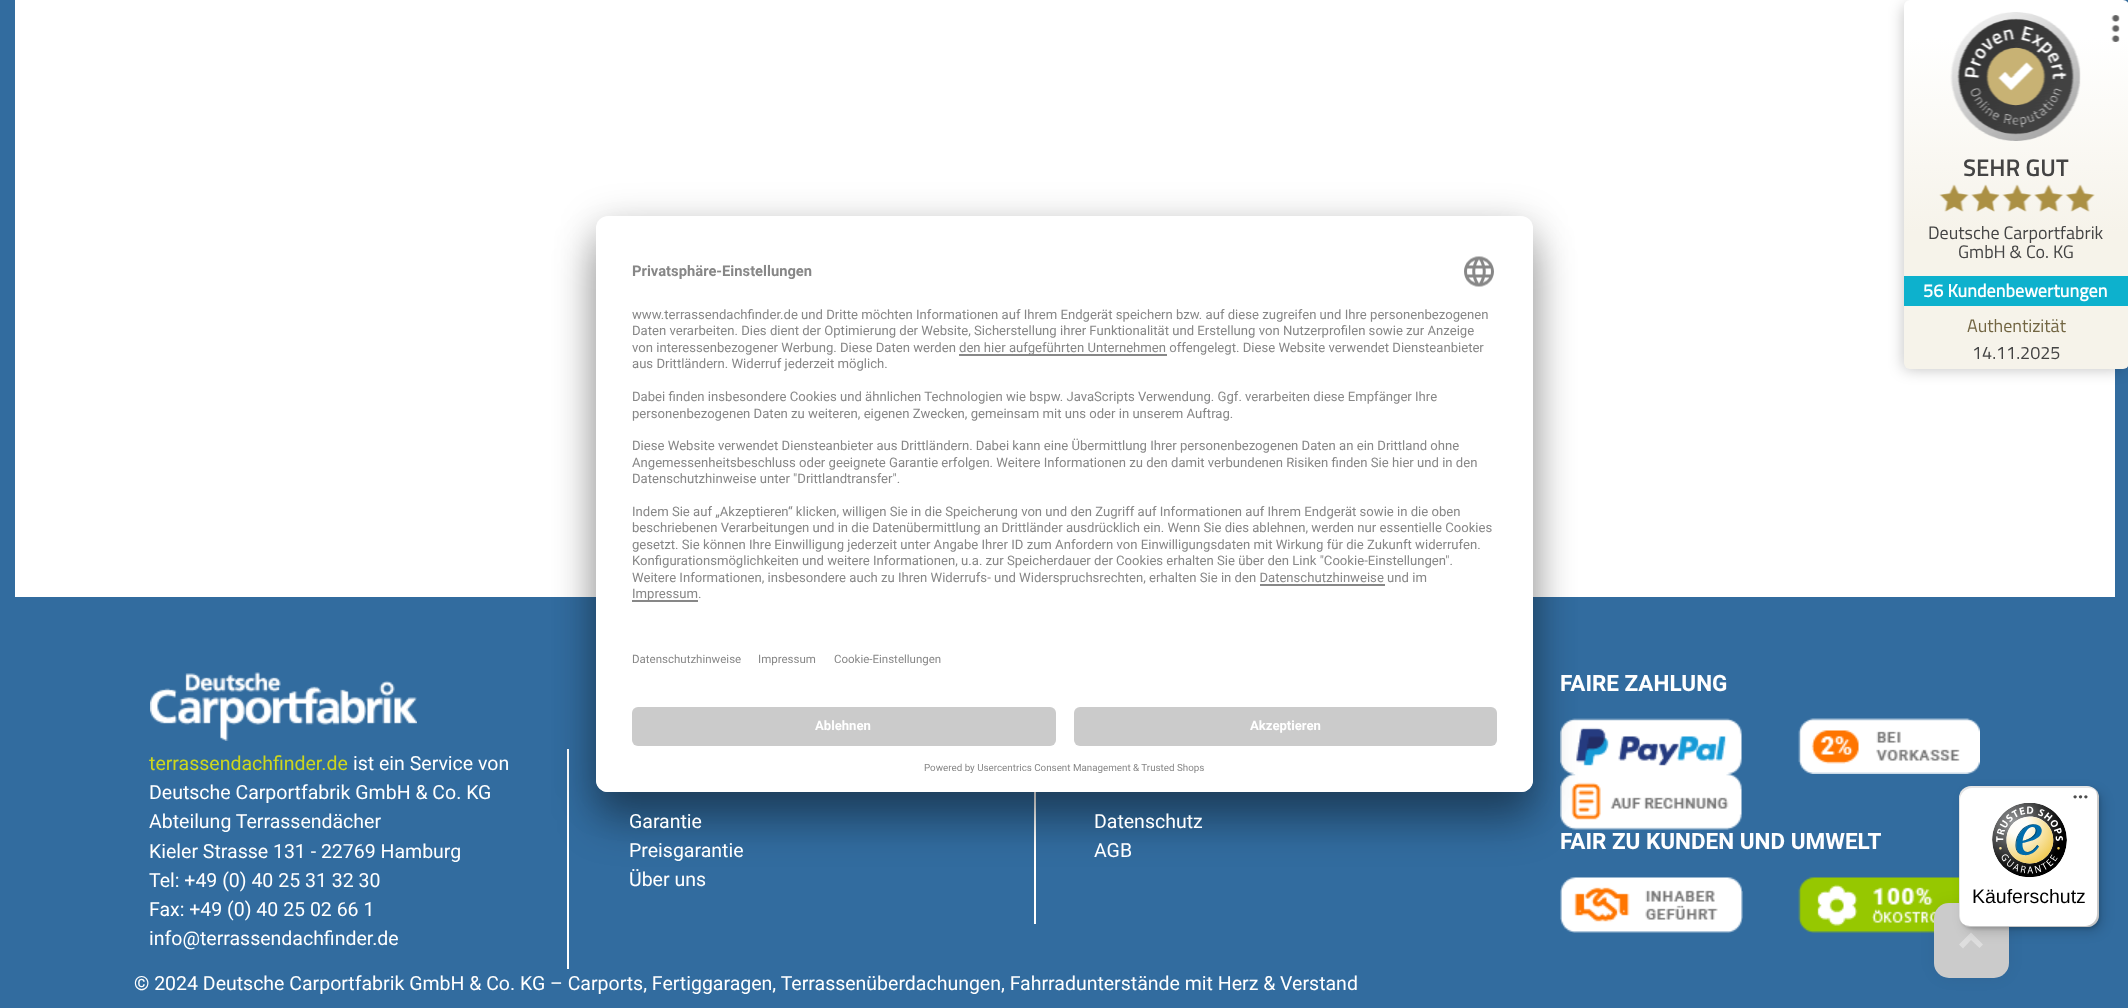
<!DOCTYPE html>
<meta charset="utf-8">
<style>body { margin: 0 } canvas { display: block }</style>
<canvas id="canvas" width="2128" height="1008"></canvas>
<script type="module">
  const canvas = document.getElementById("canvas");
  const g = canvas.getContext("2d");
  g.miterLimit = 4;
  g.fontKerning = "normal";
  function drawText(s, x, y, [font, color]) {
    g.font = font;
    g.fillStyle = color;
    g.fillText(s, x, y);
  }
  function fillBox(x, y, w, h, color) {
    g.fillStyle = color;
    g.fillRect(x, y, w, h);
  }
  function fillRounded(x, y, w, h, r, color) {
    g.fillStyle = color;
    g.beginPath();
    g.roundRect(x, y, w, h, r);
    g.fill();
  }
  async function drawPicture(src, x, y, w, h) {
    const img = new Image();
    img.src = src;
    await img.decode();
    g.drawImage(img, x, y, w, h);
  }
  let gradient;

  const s1 = ["bold 14.75px Roboto", "#878787"];
  const s2 = ["13.12px Roboto", "#878787"];
  const s3 = ["11.5px Roboto", "#878787"];
  const s4 = ["bold 13.12px Roboto", "#FFFFFF"];
  const s5 = ["9.8px Roboto", "#878787"];
  const s6 = ["600 24px Titillium Web", "#444444"];
  const s7 = ["18px Titillium Web", "#444444"];
  const s8 = ["bold 18px Titillium Web", "#FFFFFF"];
  const s9 = ["18px Titillium Web", "#726542"];
  const s10 = ["19.5px Roboto", "#CDD61E"];
  const s11 = ["19.5px Roboto", "#FFFFFF"];
  const s12 = ["bold 22.5px Roboto", "#FFFFFF"];
  const s13 = ["19.5px Liberation Sans", "#000000"];

  fillBox(0, 0, 2128, 1008, "#326C9F");
  fillBox(15, 0, 2100, 597, "#FFFFFF");
  fillBox(567, 749, 2, 220, "#FFFFFF");
  fillBox(1034, 792, 2, 132, "#FFFFFF");
  await drawPicture("pic8.png", 1560, 718, 182, 56);
  await drawPicture("pic10.png", 1560, 774, 182, 56);
  await drawPicture("pic11.png", 1560, 877, 183, 56);
  g.fillStyle = "rgba(0, 0, 0, 0.3)";
  g.filter = "blur(21px)";
  g.beginPath();
  g.roundRect(596, 246, 937, 576, 12);
  g.fill();
  g.filter = "none";
  g.fillStyle = "rgba(0, 0, 0, 0.22)";
  g.filter = "blur(19.5px)";
  g.beginPath();
  g.roundRect(596, 224, 937, 576, 12);
  g.fill();
  g.filter = "none";
  fillRounded(596, 216, 937, 576, 12, "#FFFFFF");
  drawText("Privatsphäre-Einstellungen", 632, 276, s1);
  await drawPicture("pic1.png", 1464, 256, 30, 31);
  drawText("www.terrassendachfinder.de und Dritte möchten Informationen auf Ihrem Endgerät speichern bzw. auf diese zugreifen und Ihre personenbezogenen", 632, 319, s2);
  drawText("Daten verarbeiten. Dies dient der Optimierung der Website, Sicherstellung ihrer Funktionalität und Erstellung von Nutzerprofilen sowie zur Anzeige", 632, 335, s2);
  drawText("von interessenbezogener Werbung. Diese Daten werden", 632, 352, s2);
  fillBox(959, 354, 208, 2, "#878787");
  drawText("den hier aufgeführten Unternehmen offengelegt. Diese Website verwendet Diensteanbieter", 959, 352, s2);
  drawText("aus Drittländern. Widerruf jederzeit möglich.", 632, 368, s2);
  drawText("Dabei finden insbesondere Cookies und ähnlichen Technologien wie bspw. JavaScripts Verwendung. Ggf. verarbeiten diese Empfänger Ihre", 632, 401, s2);
  drawText("personenbezogenen Daten zu weiteren, eigenen Zwecken, gemeinsam mit uns oder in unserem Auftrag.", 632, 418, s2);
  drawText("Diese Website verwendet Diensteanbieter aus Drittländern. Dabei kann eine Übermittlung Ihrer personenbezogenen Daten an ein Drittland ohne", 632, 450, s2);
  drawText("Angemessenheitsbeschluss oder geeignete Garantie erfolgen. Weitere Informationen zu den damit verbundenen Risiken finden Sie hier und in den", 632, 467, s2);
  drawText("Datenschutzhinweise unter \"Drittlandtransfer\".", 632, 483, s2);
  drawText("Indem Sie auf „Akzeptieren“ klicken, willigen Sie in die Speicherung von und den Zugriff auf Informationen auf Ihrem Endgerät sowie in die oben", 632, 516, s2);
  drawText("beschriebenen Verarbeitungen und in die Datenübermittlung an Drittländer ausdrücklich ein. Wenn Sie dies ablehnen, werden nur essentielle Cookies", 632, 532, s2);
  drawText("gesetzt. Sie können Ihre Einwilligung jederzeit unter Angabe Ihrer ID zum Anfordern von Einwilligungsdaten mit Wirkung für die Zukunft widerrufen.", 632, 549, s2);
  drawText("Konfigurationsmöglichkeiten und weitere Informationen, u.a. zur Speicherdauer der Cookies erhalten Sie über den Link \"Cookie-Einstellungen\".", 632, 565, s2);
  drawText("Weitere Informationen, insbesondere auch zu Ihren Widerrufs- und Widerspruchsrechten, erhalten Sie in den Datenschutzhinweise und im", 632, 582, s2);
  fillBox(1260, 584, 125, 2, "#878787");
  fillBox(632, 600, 66, 2, "#878787");
  drawText("Impressum.", 632, 598, s2);
  drawText("Datenschutzhinweise", 632, 663, s3);
  drawText("Impressum", 758, 663, s3);
  drawText("Cookie-Einstellungen", 834, 663, s3);
  g.fillStyle = "#FFFFFF";
  g.beginPath();
  g.roundRect(596, 695, 937, 97, [0, 0, 12, 12]);
  g.fill();
  fillRounded(632, 707, 424, 39, 6, "#CBCBCB");
  drawText("Ablehnen", 815, 730, s4);
  fillRounded(1074, 707, 423, 39, 6, "#CBCBCB");
  drawText("Akzeptieren", 1250, 730, s4);
  drawText("Powered by Usercentrics Consent Management", 924, 771, s5);
  drawText("& Trusted Shops", 1133, 771, s5);
  g.fillStyle = "rgba(0, 0, 0, 0.25)";
  g.filter = "blur(7.5px)";
  g.beginPath();
  g.roundRect(1904, 6, 219, 363, 3);
  g.fill();
  g.filter = "none";
  gradient = g.createLinearGradient(2016, 369, 2016, 0);
  gradient.addColorStop(0.37, "#F6F3EA");
  gradient.addColorStop(0.9, "#FFFFFF");
  g.fillStyle = gradient;
  g.beginPath();
  g.roundRect(1904, 0, 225, 369, 6);
  g.fill();
  await drawPicture("pic2.png", 1950, 12, 131, 129);
  await drawPicture("pic3.png", 2111, 15, 9, 27);
  drawText("SEHR GUT", 1963, 176, s6);
  await drawPicture("pic4.png", 1939, 184, 30, 28);
  await drawPicture("pic5.png", 1971, 184, 29, 28);
  await drawPicture("pic4.png", 2002, 184, 30, 28);
  await drawPicture("pic6.png", 2034, 184, 30, 28);
  await drawPicture("pic4.png", 2065, 184, 30, 28);
  drawText("Deutsche Carportfabrik", 1928, 239, s7);
  drawText("GmbH & Co. KG", 1958, 258, s7);
  fillBox(1904, 276, 224, 30, "#0DB1CD");
  g.letterSpacing = "0.1px";
  drawText("56 Kundenbewertungen", 1923, 297, s8);
  g.letterSpacing = "0px";
  drawText("Authentizität", 1967, 332, s9);
  drawText("14.11.2025", 1972, 359, s7);
  await drawPicture("pic7.png", 150, 672, 267, 69);
  drawText("terrassendachfinder.de", 149, 770, s10);
  drawText("ist ein Service von", 353, 770, s11);
  drawText("Deutsche Carportfabrik GmbH & Co. KG", 149, 799, s11);
  drawText("Abteilung Terrassendächer", 149, 828, s11);
  drawText("Kieler Strasse 131 - 22769 Hamburg", 149, 858, s11);
  drawText("Tel: +49 (0) 40 25 31 32 30", 149, 887, s11);
  drawText("Fax: +49 (0) 40 25 02 66 1", 149, 916, s11);
  drawText("info@terrassendachfinder.de", 149, 945, s11);
  drawText("Garantie", 629, 828, s11);
  drawText("Preisgarantie", 629, 857, s11);
  drawText("Über uns", 629, 886, s11);
  drawText("Datenschutz", 1094, 828, s11);
  drawText("AGB", 1094, 857, s11);
  drawText("FAIRE ZAHLUNG", 1560, 691, s12);
  await drawPicture("pic9.png", 1798, 718, 182, 56);
  drawText("FAIR ZU KUNDEN UND UMWELT", 1560, 849, s12);
  await drawPicture("pic12.png", 1798, 877, 161, 56);
  drawText("© 2024 Deutsche Carportfabrik GmbH & Co. KG – Carports, Fertiggaragen, Terrassenüberdachungen, Fahrradunterstände mit Herz & Verstand", 134, 990, s11);
  g.fillStyle = "rgba(0, 0, 0, 0.05)";
  g.filter = "blur(7.5px)";
  g.beginPath();
  g.roundRect(1934, 903, 75, 75, 15);
  g.fill();
  g.filter = "none";
  fillRounded(1934, 903, 75, 75, 15, "#CBCBCB");
  g.fillStyle = "#DEDEDE";
  g.beginPath();
  g.moveTo(1971, 932.5);
  g.lineTo(1983, 944.5);
  g.lineTo(1979.5, 948);
  g.lineTo(1971, 940);
  g.lineTo(1963, 948.5);
  g.lineTo(1959, 944.5);
  g.closePath();
  g.fill();
  g.fillStyle = "rgba(0, 0, 0, 0.15)";
  g.filter = "blur(6px)";
  g.beginPath();
  g.roundRect(1964, 791, 139, 141, 12);
  g.fill();
  g.filter = "none";
  g.filter = "blur(1.5px)";
  g.beginPath();
  g.roundRect(1961, 788, 139, 141, 12);
  g.fill();
  g.filter = "none";
  fillRounded(1959, 786, 140, 141, 12, "#FFFFFF");
  g.fillStyle = "rgba(0, 0, 0, 0.1)";
  g.beginPath();
  g.moveTo(1972, 788);
  g.lineTo(2088, 788);
  g.bezierCurveTo(2092, 788, 2096, 790, 2098, 793);
  g.bezierCurveTo(2096, 789, 2092, 786, 2087, 786);
  g.lineTo(1971, 786);
  g.bezierCurveTo(1964, 786, 1959, 791, 1959, 798);
  g.lineTo(1959, 915);
  g.bezierCurveTo(1959, 919, 1961, 922, 1963, 924);
  g.bezierCurveTo(1961, 922, 1960, 919, 1960, 916);
  g.lineTo(1960, 800);
  g.bezierCurveTo(1960, 793, 1966, 788, 1972, 788);
  g.closePath();
  g.fill();
  g.fillStyle = "rgba(0, 0, 0, 0.2)";
  g.beginPath();
  g.moveTo(1962, 923);
  g.bezierCurveTo(1964, 925, 1967, 927, 1971, 927);
  g.lineTo(2087, 927);
  g.bezierCurveTo(2094, 927, 2099, 922, 2099, 915);
  g.lineTo(2099, 798);
  g.bezierCurveTo(2099, 794, 2097, 791, 2094, 788);
  g.bezierCurveTo(2096, 791, 2097, 793, 2097, 796);
  g.lineTo(2097, 914);
  g.bezierCurveTo(2097, 920, 2092, 926, 2085, 926);
  g.lineTo(1970, 926);
  g.bezierCurveTo(1967, 926, 1964, 925, 1962, 923);
  g.closePath();
  g.fill();
  g.fillStyle = "rgba(50, 50, 50, 0.2)";
  g.beginPath();
  g.moveTo(1963, 924);
  g.bezierCurveTo(1965, 926, 1968, 927, 1971, 927);
  g.lineTo(2087, 927);
  g.bezierCurveTo(2094, 927, 2099, 922, 2099, 915);
  g.lineTo(2099, 798);
  g.bezierCurveTo(2099, 794, 2097, 791, 2095, 789);
  g.bezierCurveTo(2097, 791, 2098, 794, 2098, 797);
  g.lineTo(2098, 914);
  g.bezierCurveTo(2098, 921, 2092, 926, 2086, 926);
  g.lineTo(1970, 926);
  g.bezierCurveTo(1967, 926, 1965, 925, 1963, 924);
  g.closePath();
  g.fill();
  g.fillStyle = "rgba(255, 255, 255, 0.3)";
  g.beginPath();
  g.moveTo(1962, 923);
  g.bezierCurveTo(1964, 925, 1967, 927, 1971, 927);
  g.lineTo(2087, 927);
  g.bezierCurveTo(2094, 927, 2099, 922, 2099, 915);
  g.lineTo(2099, 798);
  g.bezierCurveTo(2099, 793, 2097, 790, 2093, 788);
  g.bezierCurveTo(2096, 790, 2098, 793, 2098, 797);
  g.lineTo(2098, 914);
  g.bezierCurveTo(2098, 921, 2092, 926, 2086, 926);
  g.lineTo(1970, 926);
  g.bezierCurveTo(1967, 926, 1964, 925, 1962, 923);
  g.closePath();
  g.fill();
  await drawPicture("pic13.png", 2073, 795, 15, 4);
  await drawPicture("pic14.png", 1992, 803, 75, 75);
  drawText("Käuferschutz", 1972, 903, s13);
</script>
